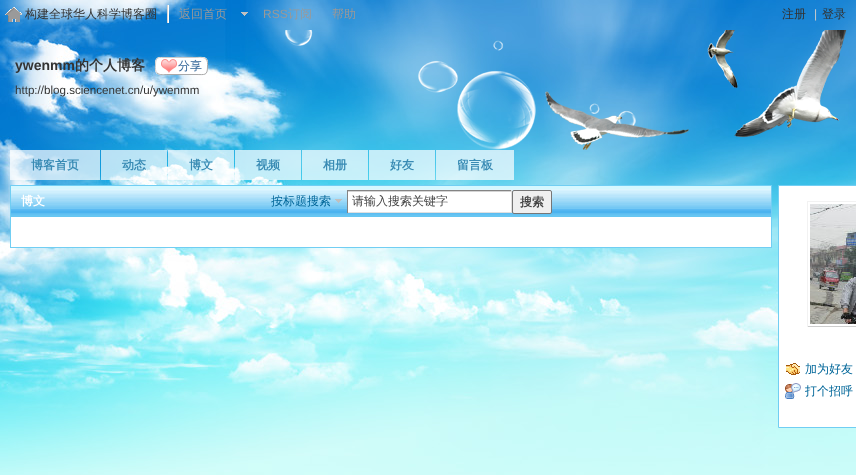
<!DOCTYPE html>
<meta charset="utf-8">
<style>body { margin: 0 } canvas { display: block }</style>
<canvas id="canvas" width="856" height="475"></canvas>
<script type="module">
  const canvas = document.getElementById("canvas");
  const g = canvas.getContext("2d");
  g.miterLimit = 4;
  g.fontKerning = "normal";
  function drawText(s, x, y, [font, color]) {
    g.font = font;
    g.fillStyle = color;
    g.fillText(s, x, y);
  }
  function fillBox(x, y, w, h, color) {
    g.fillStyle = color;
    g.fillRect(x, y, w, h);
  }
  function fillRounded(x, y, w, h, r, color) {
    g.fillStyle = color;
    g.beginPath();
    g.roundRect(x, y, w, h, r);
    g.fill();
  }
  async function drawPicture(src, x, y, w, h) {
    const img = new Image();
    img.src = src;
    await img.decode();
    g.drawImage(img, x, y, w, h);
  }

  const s1 = ["500 12px WenQuanYi Zen Hei", "#333333"];
  const s2 = ["500 12px WenQuanYi Zen Hei", "#999999"];
  const s3 = ["12px Liberation Sans", "#999999"];
  const s4 = ["12px Liberation Sans", "#CCCCCC"];
  const s5 = ["bold 14px Liberation Sans", "#333333"];
  const s6 = ["bold 14px WenQuanYi Zen Hei", "#333333"];
  const s7 = ["500 12px WenQuanYi Zen Hei", "#336699"];
  const s8 = ["11.6px Liberation Sans", "#333333"];
  const s9 = ["bold 12px WenQuanYi Zen Hei", "#398BB4"];
  const s10 = ["bold 12px WenQuanYi Zen Hei", "#FFFFFF"];
  const s11 = ["500 12px WenQuanYi Zen Hei", "#006699"];
  const s12 = ["500 12px WenQuanYi Zen Hei", "#444444"];
  const s13 = ["bold 12px WenQuanYi Zen Hei", "#444444"];

  fillBox(0, 0, 856, 475, "#FFFFFF");
  await drawPicture("pic1.png", 0, 0, 856, 475);
  await drawPicture("pic2.png", 5, 7, 17, 15);
  fillBox(168, 5, 1, 18, "#FFFFFF");
  fillBox(167, 5, 1, 18, "#D5D5D5");
  drawText("构建全球华人科学博客圈", 25, 18, s1);
  drawText("返回首页", 179, 18, s2);
  await drawPicture("pic3.png", 241, 12, 7, 4);
  drawText("RSS", 263, 18, s3);
  drawText("订阅", 288, 18, s2);
  drawText("帮助", 332, 18, s2);
  drawText("注册", 782, 18, s1);
  drawText("|", 814, 18, s4);
  drawText("登录", 822, 18, s1);
  await drawPicture("pic4.png", 285, 30, 562, 120);
  drawText("ywenmm", 15, 70, s5);
  drawText("的个人博客", 75, 70, s6);
  fillRounded(155, 57, 53, 18, 5, "#FFFFFF");
  await drawPicture("pic5.png", 161, 59, 16, 14);
  g.beginPath();
  g.moveTo(206, 59);
  g.bezierCurveTo(208, 61, 207.5, 64, 207.5, 67);
  g.bezierCurveTo(207.5, 76, 204.5, 74.5, 196, 74.5);
  g.lineTo(167, 74.5);
  g.bezierCurveTo(165, 74.5, 159.5, 75.5, 157, 73);
  g.strokeStyle = "#A9A9A9";
  g.stroke();
  g.beginPath();
  g.moveTo(157, 73);
  g.bezierCurveTo(155, 71, 155.5, 68, 155.5, 65);
  g.bezierCurveTo(155.5, 56, 158.5, 57.5, 167, 57.5);
  g.lineTo(196, 57.5);
  g.bezierCurveTo(198, 57.5, 203.5, 56.5, 206, 59);
  g.strokeStyle = "#CCCCCC";
  g.stroke();
  drawText("分享", 178, 70, s7);
  drawText("http://blog.sciencenet.cn/u/ywenmm", 15, 94, s8);
  fillBox(10, 150, 90, 30, "rgba(255, 255, 255, 0.7)");
  drawText("博客首页", 31, 169, s9);
  fillBox(101, 150, 66, 30, "rgba(255, 255, 255, 0.7)");
  drawText("动态", 122, 169, s9);
  fillBox(168, 150, 66, 30, "rgba(255, 255, 255, 0.7)");
  drawText("博文", 189, 169, s9);
  fillBox(235, 150, 66, 30, "rgba(255, 255, 255, 0.7)");
  drawText("视频", 256, 169, s9);
  fillBox(302, 150, 66, 30, "rgba(255, 255, 255, 0.7)");
  drawText("相册", 323, 169, s9);
  fillBox(369, 150, 66, 30, "rgba(255, 255, 255, 0.7)");
  drawText("好友", 390, 169, s9);
  fillBox(436, 150, 78, 30, "rgba(255, 255, 255, 0.7)");
  drawText("留言板", 457, 169, s9);
  fillBox(11, 217, 760, 30, "#FFFFFF");
  g.strokeStyle = "#71CEF3";
  g.strokeRect(10.5, 185.5, 761, 62);
  await drawPicture("pic6.png", 11, 186, 760, 31);
  drawText("博文", 21, 205, s10);
  drawText("按标题搜索", 271, 205, s11);
  await drawPicture("pic7.png", 335, 199, 7, 4);
  fillBox(348, 192, 163, 20, "#FFFFFF");
  fillBox(347, 191, 165, 1, "#D4D4D4");
  fillBox(347, 190, 165, 1, "#848484");
  fillBox(511, 190, 1, 23, "#E0E0E0");
  fillBox(347, 212, 165, 1, "#E0E0E0");
  fillBox(347, 190, 1, 23, "#848484");
  drawText("请输入搜索关键字", 352, 205, s12);
  g.fillStyle = "#EFEFEF";
  g.beginPath();
  g.roundRect(512.5, 190.5, 39, 23, 1.5);
  g.fill();
  g.strokeStyle = "#767676";
  g.stroke();
  drawText("搜索", 520, 206, s13);
  g.fillStyle = "#FFFFFF";
  g.beginPath();
  g.rect(778.5, 185.5, 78, 242);
  g.fill();
  g.strokeStyle = "#71CEF3";
  g.stroke();
  fillBox(807, 201, 49, 1, "#F2F2F2");
  fillBox(807, 326, 49, 1, "#CDCDCD");
  fillBox(807, 201, 1, 126, "#F2F2F2");
  await drawPicture("pic8.png", 810, 204, 46, 120);
  await drawPicture("pic9.png", 786, 363, 14, 12);
  drawText("加为好友", 805, 373, s11);
  await drawPicture("pic10.png", 785, 383, 16, 16);
  drawText("打个招呼", 805, 395, s11);
</script>
